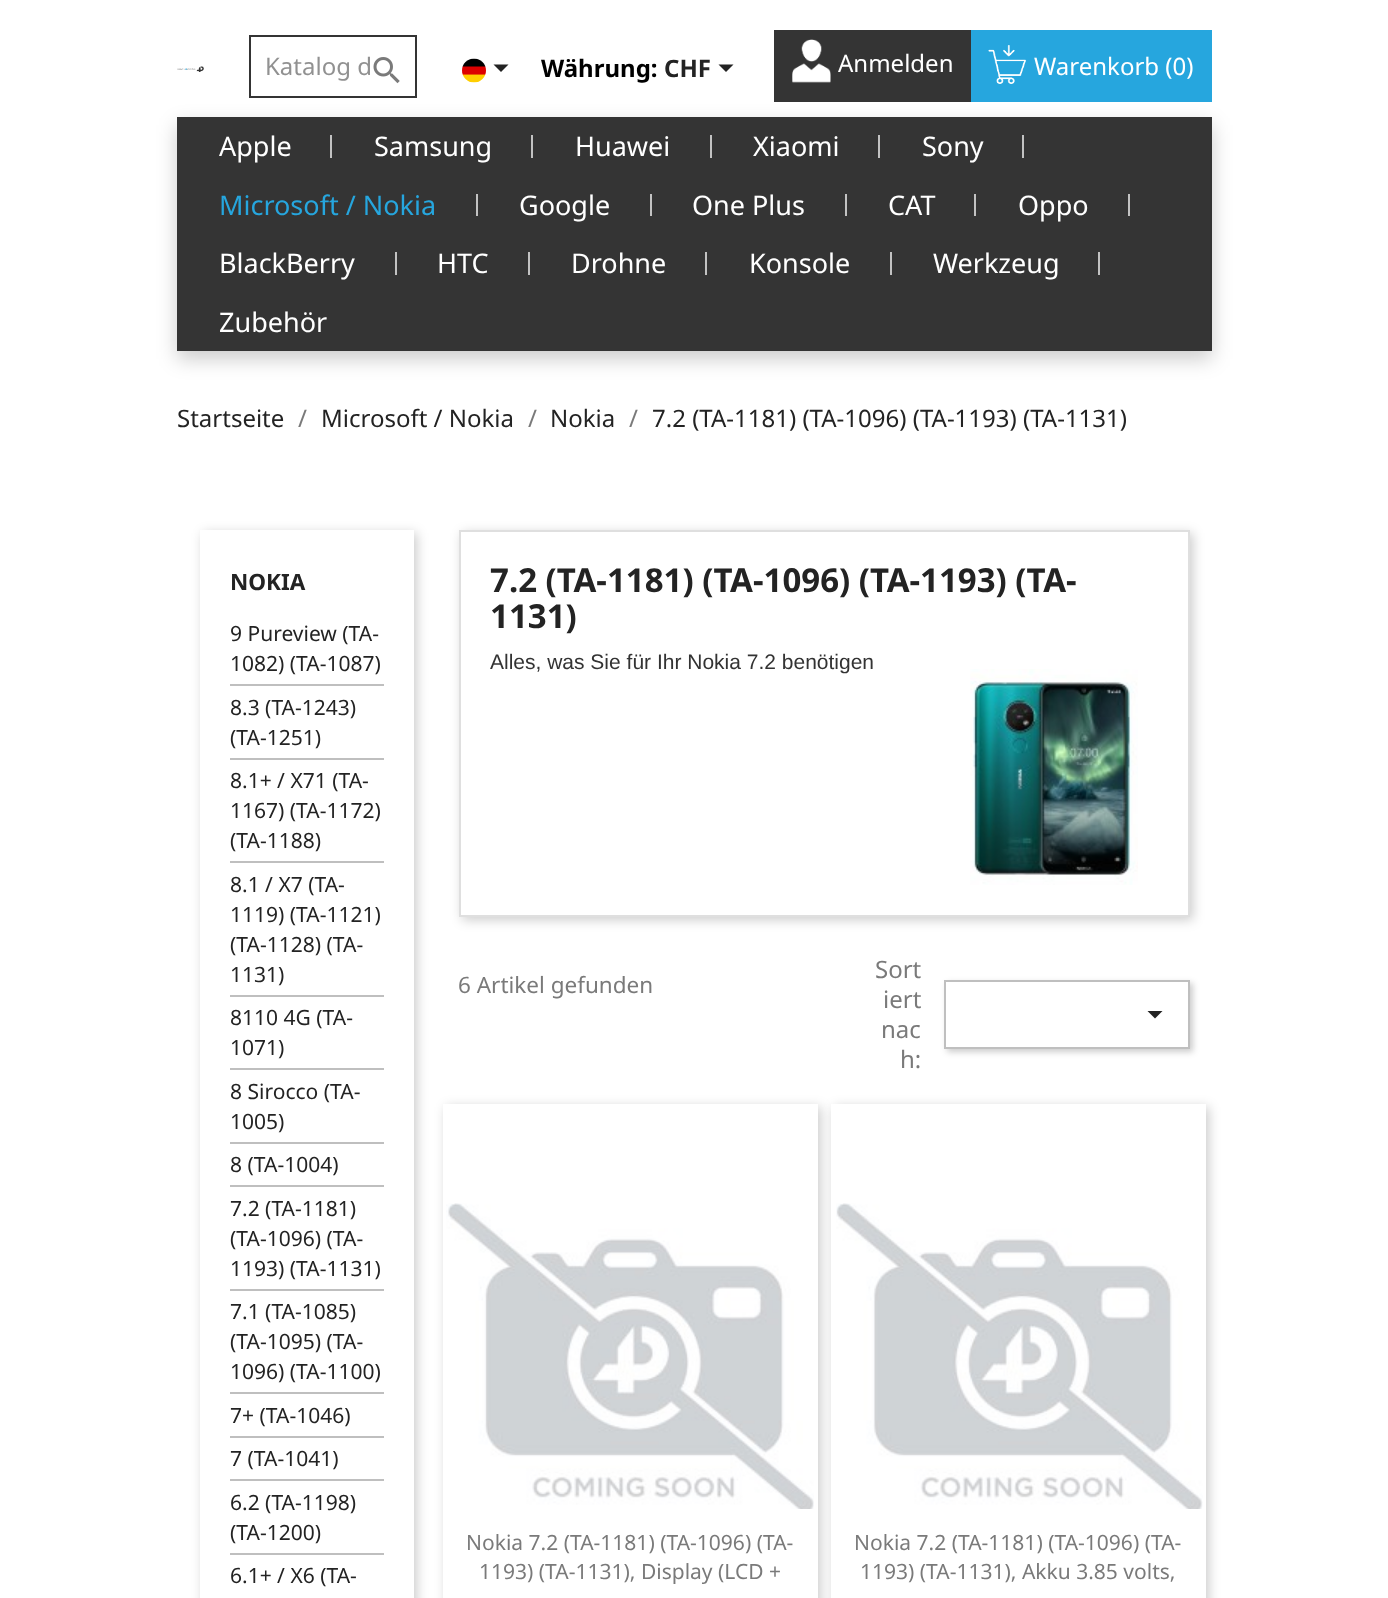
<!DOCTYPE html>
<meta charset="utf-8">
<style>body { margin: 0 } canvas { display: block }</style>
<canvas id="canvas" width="1388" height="1598"></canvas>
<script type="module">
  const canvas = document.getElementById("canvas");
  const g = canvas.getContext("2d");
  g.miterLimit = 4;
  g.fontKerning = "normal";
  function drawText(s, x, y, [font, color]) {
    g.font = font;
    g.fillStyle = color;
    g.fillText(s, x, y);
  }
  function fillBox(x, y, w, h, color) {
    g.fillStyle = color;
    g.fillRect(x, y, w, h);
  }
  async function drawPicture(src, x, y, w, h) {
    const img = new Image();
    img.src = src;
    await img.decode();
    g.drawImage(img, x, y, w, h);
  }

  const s1 = ["24px Noto Sans", "#919191"];
  const s2 = ["bold 24px Noto Sans", "#000000"];
  const s3 = ["bold 24px Noto Sans", "#232323"];
  const s4 = ["24px Noto Sans", "#FFFFFF"];
  const s5 = ["27px Noto Sans", "#FFFFFF"];
  const s6 = ["27px Noto Sans", "#26A6DE"];
  const s7 = ["24px Noto Sans", "#232323"];
  const s8 = ["24px Noto Sans", "#7A7A7A"];
  const s9 = ["bold 22.5px Noto Sans", "#232323"];
  const s10 = ["21px Noto Sans", "#232323"];
  const s11 = ["bold 33px Noto Sans", "#232323"];
  const s12 = ["21px Liberation Sans", "#333333"];
  const s13 = ["22.5px Noto Sans", "#7A7A7A"];
  const s14 = ["21px Noto Sans", "#7A7A7A"];

  fillBox(0, 0, 1388, 1598, "#FFFFFF");
  await drawPicture("pic1.png", 177, 66, 27, 6);
  g.strokeStyle = "#343434";
  g.lineWidth = 2;
  g.strokeRect(250, 36, 166, 61);
  drawText("Katalog d", 265, 75, s1);
  await drawPicture("pic2.png", 373, 57, 27, 27);
  await drawPicture("pic3.png", 462, 58, 24, 25);
  g.fillStyle = "#232323";
  g.beginPath();
  g.moveTo(493.5, 64.5);
  g.lineTo(508.5, 64.5);
  g.lineTo(501, 72);
  g.closePath();
  g.fill();
  drawText("Währung:", 541, 77, s2);
  drawText("CHF", 664, 77, s3);
  g.beginPath();
  g.moveTo(718.5, 64.5);
  g.lineTo(733.5, 64.5);
  g.lineTo(726, 72);
  g.closePath();
  g.fill();
  fillBox(774, 30, 197, 72, "#343434");
  await drawPicture("pic4.png", 792, 39, 39, 44);
  drawText("Anmelden", 838, 72, s4);
  fillBox(971, 30, 241, 72, "#26A6DE");
  await drawPicture("pic5.png", 988, 45, 39, 39);
  drawText("Warenkorb (0)", 1034, 75, s4);
  g.fillStyle = "rgba(0, 0, 0, 0.2)";
  g.filter = "blur(10px)";
  g.beginPath();
  g.rect(177, 125, 1035, 234);
  g.fill();
  g.filter = "none";
  fillBox(177, 117, 1035, 234, "#343434");
  drawText("Apple", 219, 156, s5);
  fillBox(330, 135, 2, 23, "#C2C2C2");
  drawText("Samsung", 374, 156, s5);
  fillBox(531, 135, 2, 23, "#C2C2C2");
  drawText("Huawei", 575, 156, s5);
  fillBox(710, 135, 2, 23, "#C2C2C2");
  drawText("Xiaomi", 753, 156, s5);
  fillBox(878, 135, 2, 23, "#C2C2C2");
  drawText("Sony", 922, 156, s5);
  fillBox(1022, 135, 2, 23, "#C2C2C2");
  drawText("Microsoft / Nokia", 219, 215, s6);
  fillBox(476, 194, 2, 22, "#C2C2C2");
  drawText("Google", 519, 215, s5);
  fillBox(650, 194, 2, 22, "#C2C2C2");
  drawText("One Plus", 692, 215, s5);
  fillBox(845, 194, 2, 22, "#C2C2C2");
  drawText("CAT", 888, 215, s5);
  fillBox(974, 194, 2, 22, "#C2C2C2");
  drawText("Oppo", 1018, 215, s5);
  fillBox(1128, 194, 2, 22, "#C2C2C2");
  drawText("BlackBerry", 219, 273, s5);
  fillBox(395, 252, 2, 23, "#C2C2C2");
  drawText("HTC", 437, 273, s5);
  fillBox(528, 252, 2, 23, "#C2C2C2");
  drawText("Drohne", 571, 273, s5);
  fillBox(705, 252, 2, 23, "#C2C2C2");
  drawText("Konsole", 749, 273, s5);
  fillBox(890, 252, 2, 23, "#C2C2C2");
  drawText("Werkzeug", 933, 273, s5);
  fillBox(1098, 252, 2, 23, "#C2C2C2");
  drawText("Zubehör", 219, 332, s5);
  drawText("Startseite", 177, 427, s7);
  drawText("/", 298, 427, s8);
  drawText("Microsoft / Nokia", 321, 427, s7);
  drawText("/", 528, 427, s8);
  drawText("Nokia", 550, 427, s7);
  drawText("/", 629, 427, s8);
  drawText("7.2 (TA-1181) (TA-1096) (TA-1193) (TA-1131)", 652, 427, s7);
  g.save();
  g.beginPath();
  g.moveTo(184, 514);
  g.lineTo(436, 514);
  g.lineTo(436, 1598);
  g.lineTo(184, 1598);
  g.closePath();
  g.moveTo(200, 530);
  g.lineTo(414, 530);
  g.lineTo(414, 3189);
  g.lineTo(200, 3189);
  g.closePath();
  g.clip("evenodd");
  g.fillStyle = "rgba(0, 0, 0, 0.2)";
  g.filter = "blur(6px)";
  g.beginPath();
  g.rect(203, 533, 214, 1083);
  g.fill();
  g.filter = "none";
  g.restore();
  drawText("NOKIA", 230, 590, s9);
  fillBox(230, 684, 154, 2, "#BFBFBF");
  drawText("9 Pureview (TA-", 230, 641, s10);
  drawText("1082) (TA-1087)", 230, 671, s10);
  fillBox(230, 758, 154, 2, "#BFBFBF");
  drawText("8.3 (TA-1243)", 230, 715, s10);
  drawText("(TA-1251)", 230, 745, s10);
  fillBox(230, 861, 154, 2, "#BFBFBF");
  drawText("8.1+ / X71 (TA-", 230, 788, s10);
  drawText("1167) (TA-1172)", 230, 818, s10);
  drawText("(TA-1188)", 230, 848, s10);
  fillBox(230, 995, 154, 2, "#BFBFBF");
  drawText("8.1 / X7 (TA-", 230, 892, s10);
  drawText("1119) (TA-1121)", 230, 922, s10);
  drawText("(TA-1128) (TA-", 230, 952, s10);
  drawText("1131)", 230, 982, s10);
  fillBox(230, 1068, 154, 2, "#BFBFBF");
  drawText("8110 4G (TA-", 230, 1025, s10);
  drawText("1071)", 230, 1055, s10);
  fillBox(230, 1142, 154, 2, "#BFBFBF");
  drawText("8 Sirocco (TA-", 230, 1099, s10);
  drawText("1005)", 230, 1129, s10);
  fillBox(230, 1185, 154, 2, "#BFBFBF");
  drawText("8 (TA-1004)", 230, 1172, s10);
  fillBox(230, 1289, 154, 2, "#BFBFBF");
  drawText("7.2 (TA-1181)", 230, 1216, s10);
  drawText("(TA-1096) (TA-", 230, 1246, s10);
  drawText("1193) (TA-1131)", 230, 1276, s10);
  fillBox(230, 1392, 154, 2, "#BFBFBF");
  drawText("7.1 (TA-1085)", 230, 1319, s10);
  drawText("(TA-1095) (TA-", 230, 1349, s10);
  drawText("1096) (TA-1100)", 230, 1379, s10);
  fillBox(230, 1436, 154, 2, "#BFBFBF");
  drawText("7+ (TA-1046)", 230, 1423, s10);
  fillBox(230, 1479, 154, 2, "#BFBFBF");
  drawText("7 (TA-1041)", 230, 1466, s10);
  fillBox(230, 1553, 154, 2, "#BFBFBF");
  drawText("6.2 (TA-1198)", 230, 1510, s10);
  drawText("(TA-1200)", 230, 1540, s10);
  drawText("6.1+ / X6 (TA-", 230, 1583, s10);
  g.fillStyle = "rgba(0, 0, 0, 0.2)";
  g.filter = "blur(6px)";
  g.beginPath();
  g.rect(462, 533, 731, 387);
  g.fill();
  g.filter = "none";
  g.fillStyle = "#FFFFFF";
  g.beginPath();
  g.rect(460, 531, 729, 385);
  g.fill();
  g.strokeStyle = "#DFDFDF";
  g.stroke();
  drawText("7.2 (TA-1181) (TA-1096) (TA-1193) (TA-", 490, 592, s11);
  drawText("1131)", 490, 628, s11);
  drawText("Alles, was Sie für Ihr Nokia 7.2 benötigen", 490, 669, s12);
  await drawPicture("pic6.png", 970, 669, 168, 216);
  drawText("6 Artikel gefunden", 458, 993, s13);
  drawText("Sort", 875, 978, s8);
  drawText("iert", 883, 1008, s8);
  drawText("nac", 881, 1038, s8);
  drawText("h:", 900, 1068, s8);
  g.fillStyle = "rgba(0, 0, 0, 0.2)";
  g.filter = "blur(3px)";
  g.beginPath();
  g.rect(947, 983, 246, 69);
  g.fill();
  g.filter = "none";
  g.fillStyle = "#FFFFFF";
  g.beginPath();
  g.rect(945, 981, 244, 67);
  g.fill();
  g.strokeStyle = "#BFBFBF";
  g.stroke();
  g.fillStyle = "#232323";
  g.beginPath();
  g.moveTo(1147.5, 1011);
  g.lineTo(1162.5, 1011);
  g.lineTo(1155, 1018.5);
  g.closePath();
  g.fill();
  g.fillStyle = "rgba(0, 0, 0, 0.2)";
  g.filter = "blur(6px)";
  g.beginPath();
  g.rect(446, 1107, 375, 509);
  g.fill();
  g.filter = "none";
  fillBox(443, 1104, 375, 405, "#FFFFFF");
  await drawPicture("pic7.png", 446, 1203, 368, 306);
  g.fillStyle = "rgba(0, 0, 0, 0.2)";
  g.filter = "blur(6px)";
  g.beginPath();
  g.rect(834, 1107, 375, 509);
  g.fill();
  g.filter = "none";
  fillBox(443, 1509, 375, 89, "#FFFFFF");
  drawText("Nokia 7.2 (TA-1181) (TA-1096) (TA-", 466, 1550, s14);
  drawText("1193) (TA-1131), Display (LCD +", 479, 1579, s14);
  fillBox(831, 1104, 375, 494, "#FFFFFF");
  await drawPicture("pic8.png", 836, 1203, 367, 306);
  drawText("Nokia 7.2 (TA-1181) (TA-1096) (TA-", 854, 1550, s14);
  drawText("1193) (TA-1131), Akku 3.85 volts,", 860, 1579, s14);
</script>
